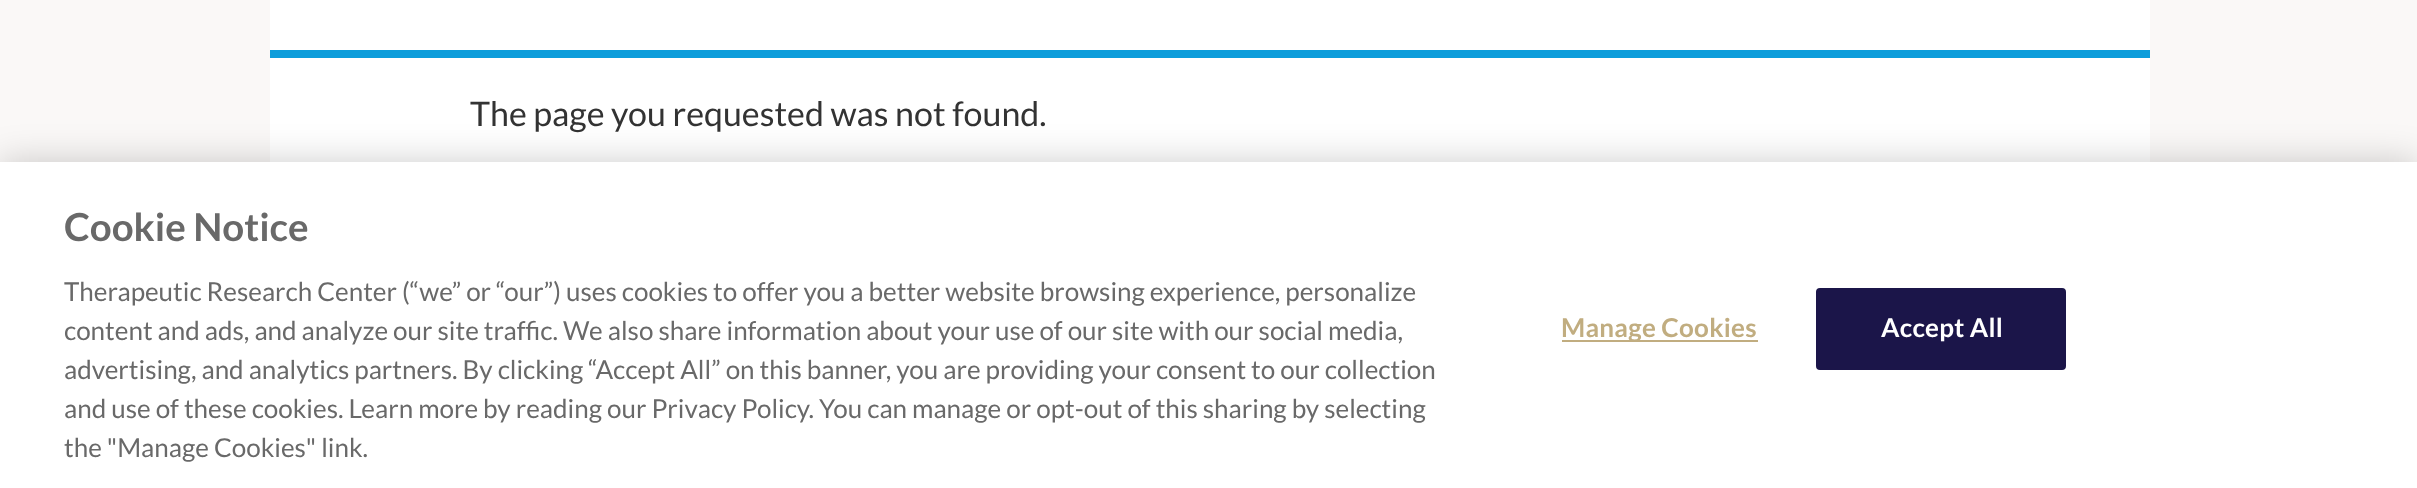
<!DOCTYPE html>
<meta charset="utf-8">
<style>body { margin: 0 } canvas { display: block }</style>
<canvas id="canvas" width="2417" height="488"></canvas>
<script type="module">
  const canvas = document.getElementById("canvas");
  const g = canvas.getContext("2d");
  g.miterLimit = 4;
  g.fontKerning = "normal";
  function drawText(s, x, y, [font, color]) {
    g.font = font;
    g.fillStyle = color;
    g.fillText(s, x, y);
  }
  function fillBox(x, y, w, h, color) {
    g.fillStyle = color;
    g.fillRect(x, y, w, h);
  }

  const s1 = ["34px Lato", "#333333"];
  const s2 = ["bold 38.5px Lato", "#696969"];
  const s3 = ["26.02px Lato", "#696969"];
  const s4 = ["bold 26.02px Lato", "#C1AD80"];
  const s5 = ["bold 26.02px Lato", "#FFFFFF"];

  fillBox(0, 0, 2417, 488, "#FAF8F7");
  fillBox(270, 0, 1880, 50, "#FFFFFF");
  fillBox(270, 50, 1880, 8, "#0D9DDB");
  fillBox(270, 58, 1880, 104, "#FFFFFF");
  drawText("The page you requested was not found.", 470, 126, s1);
  g.fillStyle = "rgba(0, 0, 0, 0.2)";
  g.filter = "blur(18px)";
  g.beginPath();
  g.rect(0, 162, 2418, 326);
  g.fill();
  g.filter = "none";
  fillBox(0, 162, 2417, 326, "#FFFFFF");
  drawText("Cookie Notice", 64, 241, s2);
  drawText("Therapeutic Research Center (“we” or “our”) uses cookies to offer you a better website browsing experience, personalize", 64, 301, s3);
  drawText("content and ads, and analyze our site traffic. We also share information about your use of our site with our social media,", 64, 340, s3);
  drawText("advertising, and analytics partners. By clicking “Accept All” on this banner, you are providing your consent to our collection", 64, 379, s3);
  drawText("and use of these cookies. Learn more by reading our Privacy Policy. You can manage or opt-out of this sharing by selecting", 64, 418, s3);
  drawText("the \"Manage Cookies\" link.", 64, 457, s3);
  fillBox(1562, 340, 196, 2, "#C1AD80");
  g.letterSpacing = "0.25px";
  drawText("Manage Cookies", 1561, 337, s4);
  g.fillStyle = "#1B1549";
  g.beginPath();
  g.roundRect(1817, 289, 248, 80, 3);
  g.fill();
  g.strokeStyle = "#1B1549";
  g.lineWidth = 2;
  g.stroke();
  drawText("Accept All", 1881, 337, s5);
</script>
